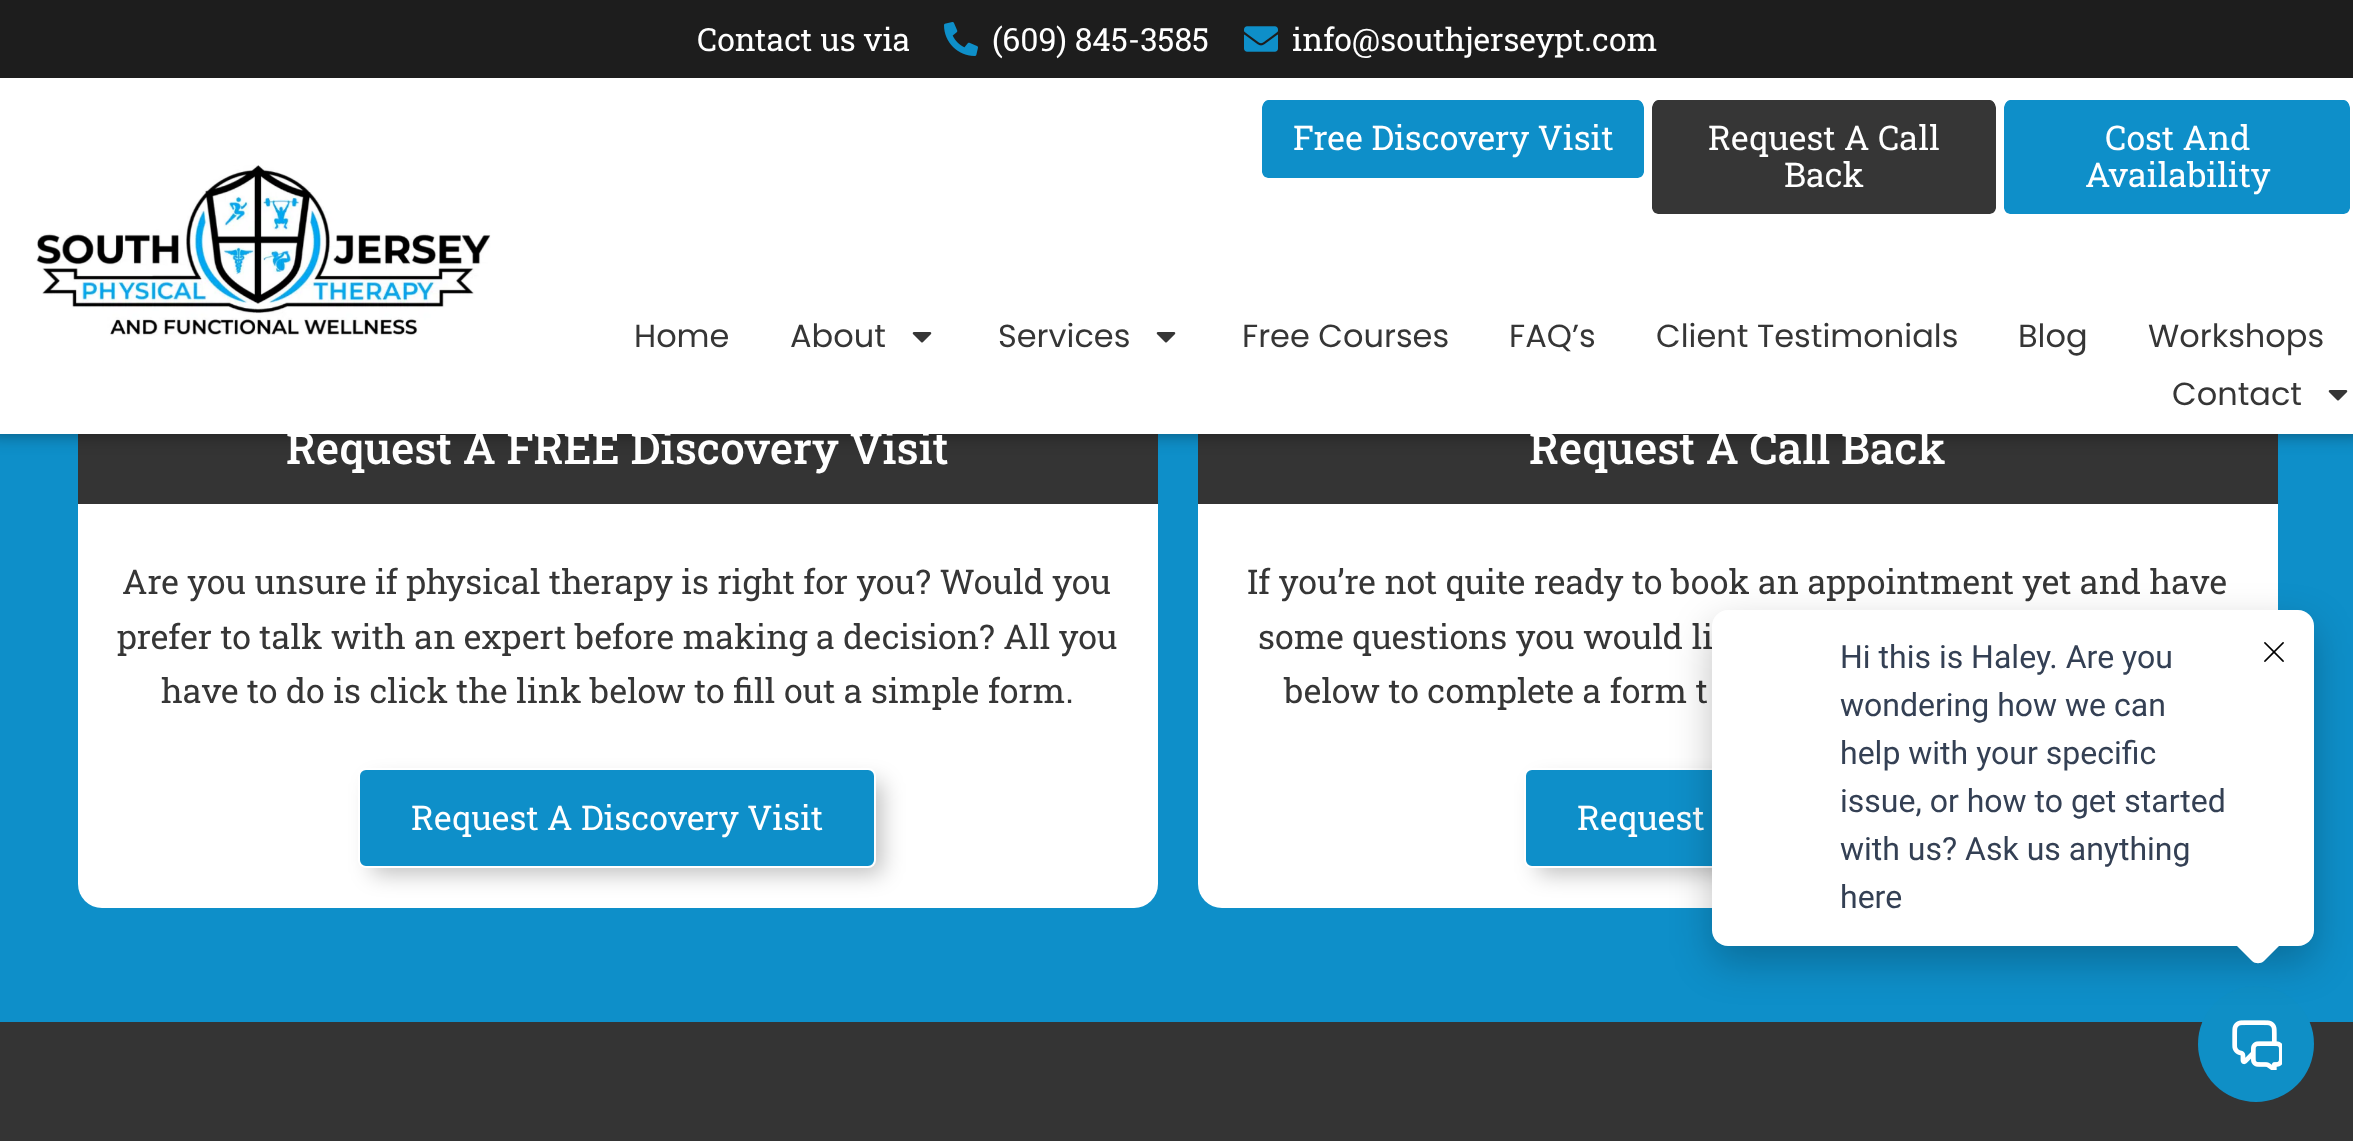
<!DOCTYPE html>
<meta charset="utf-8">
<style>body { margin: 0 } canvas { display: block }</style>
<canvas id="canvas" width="2353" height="1141"></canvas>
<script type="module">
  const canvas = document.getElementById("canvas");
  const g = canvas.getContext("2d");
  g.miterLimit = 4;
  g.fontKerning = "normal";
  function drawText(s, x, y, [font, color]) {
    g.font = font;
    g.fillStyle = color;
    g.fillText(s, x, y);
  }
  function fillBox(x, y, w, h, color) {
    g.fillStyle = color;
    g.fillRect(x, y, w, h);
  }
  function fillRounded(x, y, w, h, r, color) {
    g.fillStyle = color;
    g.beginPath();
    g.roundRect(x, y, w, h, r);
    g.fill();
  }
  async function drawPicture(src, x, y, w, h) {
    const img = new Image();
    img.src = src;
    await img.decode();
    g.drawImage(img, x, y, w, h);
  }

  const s1 = ["32px Roboto Slab", "#FFFFFF"];
  const s2 = ["34px Roboto Slab", "#FFFFFF"];
  const s3 = ["32px Poppins", "#363636"];
  const s4 = ["500 44px Roboto Slab", "#FFFFFF"];
  const s5 = ["34px Roboto Slab", "#363636"];
  const s6 = ["32px Roboto", "#344054"];

  fillBox(0, 0, 2353, 1141, "#0E8FC9");
  fillRounded(78, 392, 1080, 516, 24, "#FFFFFF");
  fillBox(78, 434, 1080, 70, "#343434");
  fillRounded(1198, 392, 1080, 516, 24, "#FFFFFF");
  fillBox(1198, 434, 1080, 70, "#343434");
  g.fillStyle = "rgba(0, 0, 0, 0.5)";
  g.filter = "blur(10px)";
  g.beginPath();
  g.rect(-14, 48, 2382, 384);
  g.fill();
  g.filter = "none";
  fillBox(0, 0, 2353, 78, "#1D1D1D");
  drawText("Contact us via", 697, 51, s1);
  await drawPicture("pic1.png", 944, 22, 34, 34);
  drawText("(609) 845-3585", 992, 51, s1);
  await drawPicture("pic2.png", 1244, 26, 34, 26);
  drawText("info@southjerseypt.com", 1292, 51, s1);
  fillBox(0, 78, 2353, 356, "#FFFFFF");
  await drawPicture("pic3.png", 36, 165, 455, 171);
  g.fillStyle = "#0E8FC9";
  g.beginPath();
  g.moveTo(1268, 100);
  g.lineTo(1638, 100);
  g.bezierCurveTo(1641, 100, 1644, 104, 1644, 108);
  g.lineTo(1644, 172);
  g.bezierCurveTo(1644, 175, 1641, 178, 1638, 178);
  g.lineTo(1268, 178);
  g.bezierCurveTo(1265, 178, 1262, 175, 1262, 172);
  g.lineTo(1262, 108);
  g.bezierCurveTo(1262, 104, 1265, 100, 1268, 100);
  g.closePath();
  g.fill();
  g.fillStyle = "#FFFFFF";
  g.beginPath();
  g.moveTo(1268, 100);
  g.lineTo(1638, 100);
  g.bezierCurveTo(1642, 100, 1646, 104, 1646, 108);
  g.lineTo(1646, 172);
  g.bezierCurveTo(1646, 176, 1642, 180, 1638, 180);
  g.lineTo(1268, 180);
  g.bezierCurveTo(1264, 180, 1260, 176, 1260, 172);
  g.lineTo(1260, 108);
  g.bezierCurveTo(1260, 104, 1264, 100, 1268, 100);
  g.closePath();
  g.moveTo(1268, 100);
  g.lineTo(1638, 100);
  g.bezierCurveTo(1641, 100, 1644, 104, 1644, 108);
  g.lineTo(1644, 172);
  g.bezierCurveTo(1644, 175, 1641, 178, 1638, 178);
  g.lineTo(1268, 178);
  g.bezierCurveTo(1265, 178, 1262, 175, 1262, 172);
  g.lineTo(1262, 108);
  g.bezierCurveTo(1262, 104, 1265, 100, 1268, 100);
  g.closePath();
  g.fill("evenodd");
  drawText("Free Discovery Visit", 1293, 150, s2);
  g.fillStyle = "#363636";
  g.beginPath();
  g.moveTo(1658, 100);
  g.lineTo(1990, 100);
  g.bezierCurveTo(1993, 100, 1996, 104, 1996, 108);
  g.lineTo(1996, 208);
  g.bezierCurveTo(1996, 211, 1993, 214, 1990, 214);
  g.lineTo(1658, 214);
  g.bezierCurveTo(1655, 214, 1652, 211, 1652, 208);
  g.lineTo(1652, 108);
  g.bezierCurveTo(1652, 104, 1655, 100, 1658, 100);
  g.closePath();
  g.fill();
  g.fillStyle = "#FFFFFF";
  g.beginPath();
  g.moveTo(1658, 100);
  g.lineTo(1990, 100);
  g.bezierCurveTo(1994, 100, 1998, 104, 1998, 108);
  g.lineTo(1998, 208);
  g.bezierCurveTo(1998, 212, 1994, 216, 1990, 216);
  g.lineTo(1658, 216);
  g.bezierCurveTo(1654, 216, 1650, 212, 1650, 208);
  g.lineTo(1650, 108);
  g.bezierCurveTo(1650, 104, 1654, 100, 1658, 100);
  g.closePath();
  g.moveTo(1658, 100);
  g.lineTo(1990, 100);
  g.bezierCurveTo(1993, 100, 1996, 104, 1996, 108);
  g.lineTo(1996, 208);
  g.bezierCurveTo(1996, 211, 1993, 214, 1990, 214);
  g.lineTo(1658, 214);
  g.bezierCurveTo(1655, 214, 1652, 211, 1652, 208);
  g.lineTo(1652, 108);
  g.bezierCurveTo(1652, 104, 1655, 100, 1658, 100);
  g.closePath();
  g.fill("evenodd");
  drawText("Request A Call", 1708, 150, s2);
  drawText("Back", 1784, 187, s2);
  g.fillStyle = "#0E8FC9";
  g.beginPath();
  g.moveTo(2010, 100);
  g.lineTo(2344, 100);
  g.bezierCurveTo(2347, 100, 2350, 104, 2350, 108);
  g.lineTo(2350, 208);
  g.bezierCurveTo(2350, 211, 2347, 214, 2344, 214);
  g.lineTo(2010, 214);
  g.bezierCurveTo(2007, 214, 2004, 211, 2004, 208);
  g.lineTo(2004, 108);
  g.bezierCurveTo(2004, 104, 2007, 100, 2010, 100);
  g.closePath();
  g.fill();
  g.fillStyle = "#FFFFFF";
  g.beginPath();
  g.moveTo(2010, 100);
  g.lineTo(2344, 100);
  g.bezierCurveTo(2348, 100, 2352, 104, 2352, 108);
  g.lineTo(2352, 208);
  g.bezierCurveTo(2352, 212, 2348, 216, 2344, 216);
  g.lineTo(2010, 216);
  g.bezierCurveTo(2006, 216, 2002, 212, 2002, 208);
  g.lineTo(2002, 108);
  g.bezierCurveTo(2002, 104, 2006, 100, 2010, 100);
  g.closePath();
  g.moveTo(2010, 100);
  g.lineTo(2344, 100);
  g.bezierCurveTo(2347, 100, 2350, 104, 2350, 108);
  g.lineTo(2350, 208);
  g.bezierCurveTo(2350, 211, 2347, 214, 2344, 214);
  g.lineTo(2010, 214);
  g.bezierCurveTo(2007, 214, 2004, 211, 2004, 208);
  g.lineTo(2004, 108);
  g.bezierCurveTo(2004, 104, 2007, 100, 2010, 100);
  g.closePath();
  g.fill("evenodd");
  drawText("Cost And", 2105, 150, s2);
  drawText("Availability", 2085, 187, s2);
  drawText("Home", 634, 347, s3);
  drawText("About", 790, 347, s3);
  await drawPicture("pic4.png", 912, 332, 20, 11);
  drawText("Services", 998, 347, s3);
  await drawPicture("pic4.png", 1156, 332, 20, 11);
  drawText("Free Courses", 1242, 347, s3);
  drawText("FAQ’s", 1509, 347, s3);
  drawText("Client Testimonials", 1656, 347, s3);
  drawText("Blog", 2018, 347, s3);
  drawText("Workshops", 2148, 347, s3);
  drawText("Contact", 2172, 405, s3);
  await drawPicture("pic4.png", 2328, 390, 20, 11);
  drawText("Request A FREE Discovery Visit", 286, 464, s4);
  drawText("Are you unsure if physical therapy is right for you? Would you", 122, 594, s5);
  drawText("prefer to talk with an expert before making a decision? All you", 117, 649, s5);
  drawText("have to do is click the link below to fill out a simple form.", 161, 703, s5);
  g.fillStyle = "rgba(0, 0, 0, 0.25)";
  g.filter = "blur(11px)";
  g.beginPath();
  g.roundRect(372, 782, 510, 92, 4);
  g.fill();
  g.filter = "none";
  g.fillStyle = "#0E8FC9";
  g.beginPath();
  g.roundRect(359, 769, 516, 98, 7);
  g.fill();
  g.strokeStyle = "#FFFFFF";
  g.lineWidth = 2;
  g.stroke();
  drawText("Request A Discovery Visit", 411, 830, s2);
  drawText("Request A Call Back", 1529, 464, s4);
  drawText("If you’re not quite ready to book an appointment yet and have", 1247, 594, s5);
  drawText("some questions you would li", 1258, 649, s5);
  drawText("below to complete a form t", 1284, 703, s5);
  g.fillStyle = "rgba(0, 0, 0, 0.25)";
  g.filter = "blur(11px)";
  g.beginPath();
  g.roundRect(1538, 782, 418, 92, 4);
  g.fill();
  g.filter = "none";
  g.fillStyle = "#0E8FC9";
  g.beginPath();
  g.roundRect(1525, 769, 424, 98, 7);
  g.fill();
  g.stroke();
  drawText("Request", 1577, 830, s2);
  fillBox(0, 1022, 2353, 119, "#343434");
  g.fillStyle = "#0F8FC6";
  g.beginPath();
  g.arc(2256, 1044, 58, 0, Math.PI * 2);
  g.fill();
  await drawPicture("pic6.png", 2232, 1020, 50, 50);
  g.fillStyle = "rgba(0, 0, 0, 0.24)";
  g.filter = "blur(20px)";
  g.beginPath();
  g.roundRect(1712, 626, 602, 336, 16);
  g.fill();
  g.filter = "none";
  fillRounded(1712, 610, 602, 336, 16, "#FFFFFF");
  drawText("Hi this is Haley. Are you", 1840, 668, s6);
  drawText("wondering how we can", 1840, 716, s6);
  drawText("help with your specific", 1840, 764, s6);
  drawText("issue, or how to get started", 1840, 812, s6);
  drawText("with us? Ask us anything", 1840, 860, s6);
  drawText("here", 1840, 908, s6);
  g.fillStyle = "#FFFFFF";
  g.beginPath();
  g.moveTo(2264, 915);
  g.lineTo(2281, 932);
  g.bezierCurveTo(2284, 935, 2284, 941, 2281, 944);
  g.lineTo(2264, 961);
  g.bezierCurveTo(2261, 964, 2255, 964, 2252, 961);
  g.lineTo(2235, 944);
  g.bezierCurveTo(2232, 941, 2232, 935, 2235, 932);
  g.lineTo(2252, 915);
  g.bezierCurveTo(2255, 912, 2261, 912, 2264, 915);
  g.closePath();
  g.fill();
  await drawPicture("pic5.png", 2264, 642, 20, 20);
</script>
